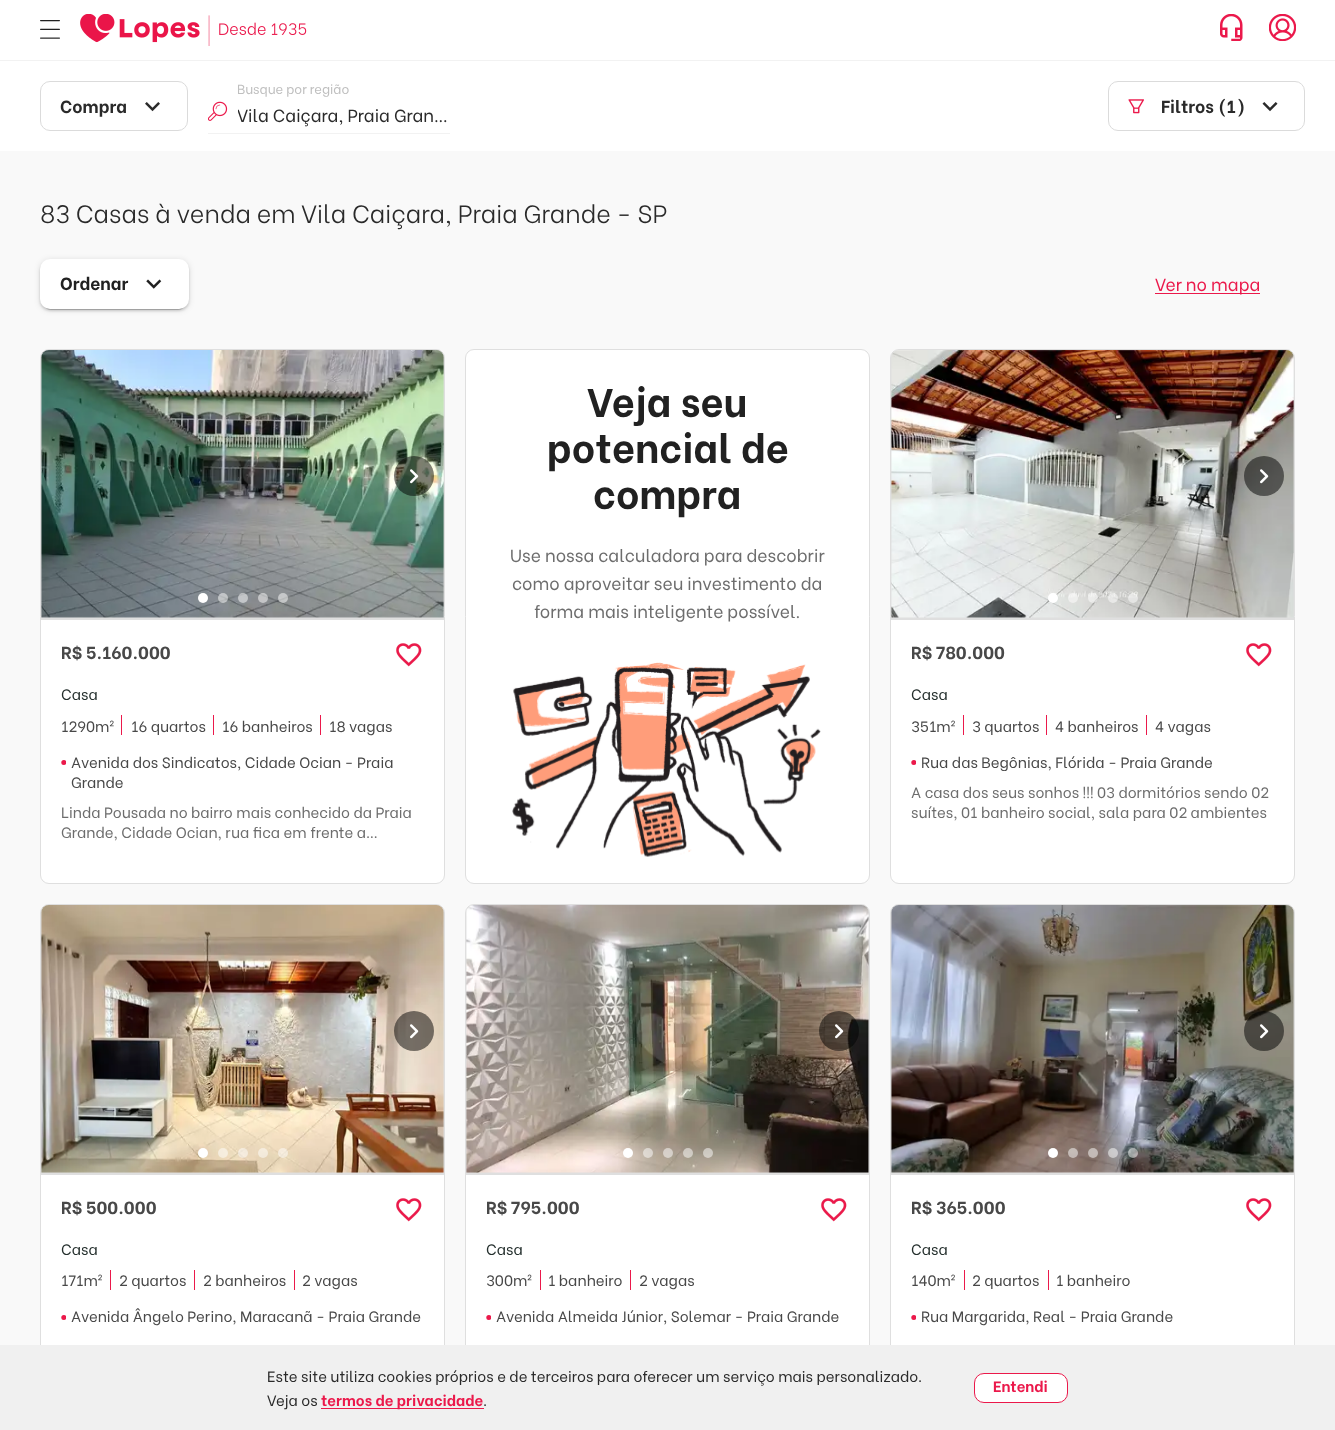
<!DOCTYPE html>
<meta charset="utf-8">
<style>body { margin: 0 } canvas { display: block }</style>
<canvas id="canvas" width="1335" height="1430"></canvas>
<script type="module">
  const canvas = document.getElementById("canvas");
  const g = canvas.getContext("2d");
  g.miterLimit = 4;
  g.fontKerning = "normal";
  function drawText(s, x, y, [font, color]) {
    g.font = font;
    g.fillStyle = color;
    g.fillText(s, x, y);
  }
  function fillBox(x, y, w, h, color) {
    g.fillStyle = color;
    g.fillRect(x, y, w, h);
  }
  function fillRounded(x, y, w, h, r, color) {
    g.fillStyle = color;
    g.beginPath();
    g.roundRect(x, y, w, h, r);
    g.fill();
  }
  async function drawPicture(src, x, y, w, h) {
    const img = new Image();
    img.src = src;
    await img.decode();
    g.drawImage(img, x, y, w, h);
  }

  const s1 = ["bold 17.5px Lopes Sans", "#2A2A2A"];
  const s2 = ["13.1px Lopes Sans", "#BFBFBF"];
  const s3 = ["17.5px Lopes Sans", "#2A2A2A"];
  const s4 = ["300 25px Lopes Sans", "#2A2A2A"];
  const s5 = ["bold 17.5px Lopes Sans", "#212121"];
  const s6 = ["17.5px Lopes Sans", "#EB194B"];
  const s7 = ["bold 40px Lopes Sans", "#212121"];
  const s8 = ["17.5px Lopes Sans", "#6D6D6D"];
  const s9 = ["bold 17.5px Lopes Sans", "#484848"];
  const s10 = ["15px Lopes Sans", "#242F2D"];
  const s11 = ["15px Lopes Sans", "#484848"];
  const s12 = ["15px Lopes Sans", "#6D6D6D"];
  const s13 = ["15px Lopes Sans", "#2A2A2A"];
  const s14 = ["bold 15px Lopes Sans", "#EB194B"];

  fillBox(0, 0, 1335, 1430, "#FFFFFF");
  fillBox(0, 60, 1335, 1, "#F2F2F2");
  await drawPicture("pic1.png", 40, 20, 20, 19);
  await drawPicture("pic2.png", 80, 14, 227, 32);
  await drawPicture("pic3.png", 1220, 14, 23, 27);
  await drawPicture("pic4.png", 1269, 14, 27, 27);
  g.beginPath();
  g.roundRect(40.5, 81.5, 147, 49, 9.5);
  g.strokeStyle = "#DBDBDB";
  g.stroke();
  drawText("Compra", 60, 113, s1);
  await drawPicture("pic5.png", 145, 102, 15, 10);
  await drawPicture("pic6.png", 208, 101, 20, 20);
  drawText("Busque por região", 237, 94, s2);
  g.save();
  g.beginPath();
  g.rect(238, 101, 212, 27);
  g.clip();
  drawText("Vila Caiçara, Praia Gran…", 237, 122, s3);
  g.restore();
  fillBox(208, 133, 242, 1, "#F2F2F2");
  g.beginPath();
  g.roundRect(1108.5, 81.5, 196, 49, 9.5);
  g.stroke();
  await drawPicture("pic7.png", 1128, 99, 16, 15);
  drawText("Filtros (1)", 1161, 113, s1);
  await drawPicture("pic8.png", 1262, 102, 16, 10);
  fillBox(0, 151, 1335, 1194, "#F9F9F9");
  drawText("83 Casas à venda em Vila Caiçara, Praia Grande - SP", 40, 223, s4);
  g.fillStyle = "rgba(0, 0, 0, 0.12)";
  g.filter = "blur(3px)";
  g.beginPath();
  g.roundRect(40, 260, 149, 50, 10);
  g.fill();
  g.filter = "none";
  g.fillStyle = "rgba(0, 0, 0, 0.14)";
  g.filter = "blur(1px)";
  g.beginPath();
  g.roundRect(40, 261, 149, 50, 10);
  g.fill();
  g.filter = "none";
  g.fillStyle = "rgba(0, 0, 0, 0.2)";
  g.filter = "blur(0.5px)";
  g.beginPath();
  g.roundRect(43, 265, 143, 45, 8);
  g.fill();
  g.filter = "none";
  fillRounded(40, 259, 149, 50, 10, "#FFFFFF");
  drawText("Ordenar", 60, 290, s5);
  await drawPicture("pic9.png", 146, 279, 16, 10);
  fillBox(1155, 293, 105, 1, "#EB194B");
  drawText("Ver no mapa", 1155, 291, s6);
  g.fillStyle = "#FFFFFF";
  g.beginPath();
  g.roundRect(465.5, 349.5, 404, 534, 8.5);
  g.fill();
  g.strokeStyle = "#DFDFDF";
  g.stroke();
  drawText("Veja seu", 587, 417, s7);
  drawText("potencial de", 547, 463, s7);
  drawText("compra", 593, 509, s7);
  drawText("Use nossa calculadora para descobrir", 510, 562, s8);
  drawText("como aproveitar seu investimento da", 512, 590, s8);
  drawText("forma mais inteligente possível.", 534, 618, s8);
  await drawPicture("pic10.png", 512, 662, 309, 195);
  g.fillStyle = "#FFFFFF";
  g.beginPath();
  g.roundRect(40.5, 349.5, 404, 534, 8.5);
  g.fill();
  g.stroke();
  g.fillStyle = "#DFDFDF";
  g.beginPath();
  g.roundRect(41, 350, 403, 270, [8, 8, 0, 0]);
  g.fill();
  g.beginPath();
  g.roundRect(41, 350, 403, 268, [8, 8, 0, 0]);
  g.fill();
  await drawPicture("pic11.png", 41, 350, 403, 268);
  g.fillStyle = "rgba(0, 0, 0, 0.5)";
  g.beginPath();
  g.arc(414, 476, 20, 0, Math.PI * 2);
  g.fill();
  await drawPicture("pic12.png", 410, 469, 9, 15);
  g.fillStyle = "#FFFFFF";
  g.beginPath();
  g.arc(203, 598, 5, 0, Math.PI * 2);
  g.fill();
  g.fillStyle = "rgba(255, 255, 255, 0.5)";
  g.beginPath();
  g.arc(223, 598, 5, 0, Math.PI * 2);
  g.fill();
  g.beginPath();
  g.arc(243, 598, 5, 0, Math.PI * 2);
  g.fill();
  g.beginPath();
  g.arc(263, 598, 5, 0, Math.PI * 2);
  g.fill();
  g.beginPath();
  g.arc(283, 598, 5, 0, Math.PI * 2);
  g.fill();
  drawText("R$ 5.160.000", 61, 659, s9);
  await drawPicture("pic13.png", 396, 643, 26, 24);
  drawText("Casa", 61, 700, s10);
  fillBox(121, 715, 1, 20, "#EB194B");
  drawText("1290m²", 61, 732, s11);
  fillBox(213, 715, 1, 20, "#EB194B");
  drawText("16 quartos", 131, 732, s11);
  fillBox(320, 715, 1, 20, "#EB194B");
  drawText("16 banheiros", 222, 732, s11);
  drawText("18 vagas", 329, 732, s11);
  g.save();
  g.beginPath();
  g.rect(61, 760, 5, 5);
  g.clip();
  g.fillStyle = "#EB194B";
  g.beginPath();
  g.arc(63.8, 762.5, 2.5, 0, Math.PI * 2);
  g.fill();
  g.restore();
  drawText("Avenida dos Sindicatos, Cidade Ocian - Praia", 71, 768, s11);
  drawText("Grande", 71, 788, s11);
  drawText("Linda Pousada no bairro mais conhecido da Praia", 61, 818, s12);
  drawText("Grande, Cidade Ocian, rua fica em frente a…", 61, 838, s12);
  g.fillStyle = "#FFFFFF";
  g.beginPath();
  g.roundRect(890.5, 349.5, 404, 534, 8.5);
  g.fill();
  g.stroke();
  g.fillStyle = "#DFDFDF";
  g.beginPath();
  g.roundRect(891, 350, 403, 270, [8, 8, 0, 0]);
  g.fill();
  g.beginPath();
  g.roundRect(891, 350, 403, 268, [8, 8, 0, 0]);
  g.fill();
  await drawPicture("pic14.png", 891, 350, 403, 268);
  g.fillStyle = "rgba(0, 0, 0, 0.5)";
  g.beginPath();
  g.arc(1264, 476, 20, 0, Math.PI * 2);
  g.fill();
  await drawPicture("pic15.png", 1260, 469, 9, 15);
  g.fillStyle = "#FFFFFF";
  g.beginPath();
  g.arc(1053, 598, 5, 0, Math.PI * 2);
  g.fill();
  g.fillStyle = "rgba(255, 255, 255, 0.5)";
  g.beginPath();
  g.arc(1073, 598, 5, 0, Math.PI * 2);
  g.fill();
  g.beginPath();
  g.arc(1093, 598, 5, 0, Math.PI * 2);
  g.fill();
  g.beginPath();
  g.arc(1113, 598, 5, 0, Math.PI * 2);
  g.fill();
  g.beginPath();
  g.arc(1133, 598, 5, 0, Math.PI * 2);
  g.fill();
  drawText("R$ 780.000", 911, 659, s9);
  await drawPicture("pic13.png", 1246, 643, 26, 24);
  drawText("Casa", 911, 700, s10);
  fillBox(963, 715, 1, 20, "#EB194B");
  drawText("351m²", 911, 732, s11);
  fillBox(1046, 715, 1, 20, "#EB194B");
  drawText("3 quartos", 972, 732, s11);
  fillBox(1146, 715, 1, 20, "#EB194B");
  drawText("4 banheiros", 1055, 732, s11);
  drawText("4 vagas", 1155, 732, s11);
  g.save();
  g.beginPath();
  g.rect(911, 760, 5, 5);
  g.clip();
  g.fillStyle = "#EB194B";
  g.beginPath();
  g.arc(913.8, 762.5, 2.5, 0, Math.PI * 2);
  g.fill();
  g.restore();
  g.save();
  g.beginPath();
  g.rect(921, 751, 292, 20);
  g.clip();
  drawText("Rua das Begônias, Flórida - Praia Grande", 921, 768, s11);
  g.restore();
  drawText("A casa dos seus sonhos !!! 03 dormitórios sendo 02", 911, 798, s12);
  drawText("suítes, 01 banheiro social, sala para 02 ambientes", 911, 818, s12);
  g.fillStyle = "#FFFFFF";
  g.beginPath();
  g.roundRect(40.5, 904.5, 404, 493, 8.5);
  g.fill();
  g.stroke();
  g.fillStyle = "#DFDFDF";
  g.beginPath();
  g.roundRect(41, 905, 403, 270, [8, 8, 0, 0]);
  g.fill();
  g.beginPath();
  g.roundRect(41, 905, 403, 268, [8, 8, 0, 0]);
  g.fill();
  await drawPicture("pic16.png", 41, 905, 403, 268);
  g.fillStyle = "rgba(0, 0, 0, 0.5)";
  g.beginPath();
  g.arc(414, 1031, 20, 0, Math.PI * 2);
  g.fill();
  await drawPicture("pic17.png", 410, 1024, 9, 15);
  g.fillStyle = "#FFFFFF";
  g.beginPath();
  g.arc(203, 1153, 5, 0, Math.PI * 2);
  g.fill();
  g.fillStyle = "rgba(255, 255, 255, 0.5)";
  g.beginPath();
  g.arc(223, 1153, 5, 0, Math.PI * 2);
  g.fill();
  g.beginPath();
  g.arc(243, 1153, 5, 0, Math.PI * 2);
  g.fill();
  g.beginPath();
  g.arc(263, 1153, 5, 0, Math.PI * 2);
  g.fill();
  g.beginPath();
  g.arc(283, 1153, 5, 0, Math.PI * 2);
  g.fill();
  drawText("R$ 500.000", 61, 1214, s9);
  await drawPicture("pic13.png", 396, 1198, 26, 24);
  drawText("Casa", 61, 1255, s10);
  fillBox(110, 1270, 1, 20, "#EB194B");
  drawText("171m²", 61, 1286, s11);
  fillBox(194, 1270, 1, 20, "#EB194B");
  drawText("2 quartos", 119, 1286, s11);
  fillBox(294, 1270, 1, 20, "#EB194B");
  drawText("2 banheiros", 203, 1286, s11);
  drawText("2 vagas", 302, 1286, s11);
  g.save();
  g.beginPath();
  g.rect(61, 1315, 5, 5);
  g.clip();
  g.fillStyle = "#EB194B";
  g.beginPath();
  g.arc(63.8, 1317.5, 2.5, 0, Math.PI * 2);
  g.fill();
  g.restore();
  drawText("Avenida Ângelo Perino, Maracanã - Praia Grande", 71, 1322, s11);
  g.fillStyle = "#FFFFFF";
  g.beginPath();
  g.roundRect(465.5, 904.5, 404, 493, 8.5);
  g.fill();
  g.stroke();
  g.fillStyle = "#DFDFDF";
  g.beginPath();
  g.roundRect(466, 905, 403, 270, [8, 8, 0, 0]);
  g.fill();
  g.beginPath();
  g.roundRect(466, 905, 403, 268, [8, 8, 0, 0]);
  g.fill();
  await drawPicture("pic18.png", 466, 905, 403, 268);
  g.fillStyle = "rgba(0, 0, 0, 0.5)";
  g.beginPath();
  g.arc(839, 1031, 20, 0, Math.PI * 2);
  g.fill();
  await drawPicture("pic19.png", 835, 1024, 9, 15);
  g.fillStyle = "#FFFFFF";
  g.beginPath();
  g.arc(628, 1153, 5, 0, Math.PI * 2);
  g.fill();
  g.fillStyle = "rgba(255, 255, 255, 0.5)";
  g.beginPath();
  g.arc(648, 1153, 5, 0, Math.PI * 2);
  g.fill();
  g.beginPath();
  g.arc(668, 1153, 5, 0, Math.PI * 2);
  g.fill();
  g.beginPath();
  g.arc(688, 1153, 5, 0, Math.PI * 2);
  g.fill();
  g.beginPath();
  g.arc(708, 1153, 5, 0, Math.PI * 2);
  g.fill();
  drawText("R$ 795.000", 486, 1214, s9);
  await drawPicture("pic13.png", 821, 1198, 26, 24);
  drawText("Casa", 486, 1255, s10);
  fillBox(540, 1270, 1, 20, "#EB194B");
  drawText("300m²", 486, 1286, s11);
  fillBox(630, 1270, 1, 20, "#EB194B");
  drawText("1 banheiro", 548, 1286, s11);
  drawText("2 vagas", 639, 1286, s11);
  g.save();
  g.beginPath();
  g.rect(486, 1315, 5, 5);
  g.clip();
  g.fillStyle = "#EB194B";
  g.beginPath();
  g.arc(488.8, 1317.5, 2.5, 0, Math.PI * 2);
  g.fill();
  g.restore();
  drawText("Avenida Almeida Júnior, Solemar - Praia Grande", 496, 1322, s11);
  g.fillStyle = "#FFFFFF";
  g.beginPath();
  g.roundRect(890.5, 904.5, 404, 493, 8.5);
  g.fill();
  g.stroke();
  g.fillStyle = "#DFDFDF";
  g.beginPath();
  g.roundRect(891, 905, 403, 270, [8, 8, 0, 0]);
  g.fill();
  g.beginPath();
  g.roundRect(891, 905, 403, 268, [8, 8, 0, 0]);
  g.fill();
  await drawPicture("pic20.png", 891, 905, 403, 268);
  g.fillStyle = "rgba(0, 0, 0, 0.5)";
  g.beginPath();
  g.arc(1264, 1031, 20, 0, Math.PI * 2);
  g.fill();
  await drawPicture("pic21.png", 1260, 1024, 9, 15);
  g.fillStyle = "#FFFFFF";
  g.beginPath();
  g.arc(1053, 1153, 5, 0, Math.PI * 2);
  g.fill();
  g.fillStyle = "rgba(255, 255, 255, 0.5)";
  g.beginPath();
  g.arc(1073, 1153, 5, 0, Math.PI * 2);
  g.fill();
  g.beginPath();
  g.arc(1093, 1153, 5, 0, Math.PI * 2);
  g.fill();
  g.beginPath();
  g.arc(1113, 1153, 5, 0, Math.PI * 2);
  g.fill();
  g.beginPath();
  g.arc(1133, 1153, 5, 0, Math.PI * 2);
  g.fill();
  drawText("R$ 365.000", 911, 1214, s9);
  await drawPicture("pic13.png", 1246, 1198, 26, 24);
  drawText("Casa", 911, 1255, s10);
  fillBox(964, 1270, 1, 20, "#EB194B");
  drawText("140m²", 911, 1286, s11);
  fillBox(1048, 1270, 1, 20, "#EB194B");
  drawText("2 quartos", 972, 1286, s11);
  drawText("1 banheiro", 1056, 1286, s11);
  g.save();
  g.beginPath();
  g.rect(911, 1315, 5, 5);
  g.clip();
  g.fillStyle = "#EB194B";
  g.beginPath();
  g.arc(913.8, 1317.5, 2.5, 0, Math.PI * 2);
  g.fill();
  g.restore();
  drawText("Rua Margarida, Real - Praia Grande", 921, 1322, s11);
  fillBox(0, 1345, 1335, 85, "#F0F0F0");
  drawText("Este site utiliza cookies próprios e de terceiros para oferecer um serviço mais personalizado.", 267, 1382, s13);
  drawText("Veja os", 267, 1406, s13);
  fillBox(321, 1408, 163, 1, "#EB194B");
  drawText("termos de privacidade", 321, 1406, s14);
  drawText(".", 483, 1406, s13);
  g.fillStyle = "#FFFFFF";
  g.beginPath();
  g.roundRect(974.5, 1373.5, 93, 29, 9.5);
  g.fill();
  g.strokeStyle = "#EB194B";
  g.stroke();
  drawText("Entendi", 993, 1392, s14);
</script>
